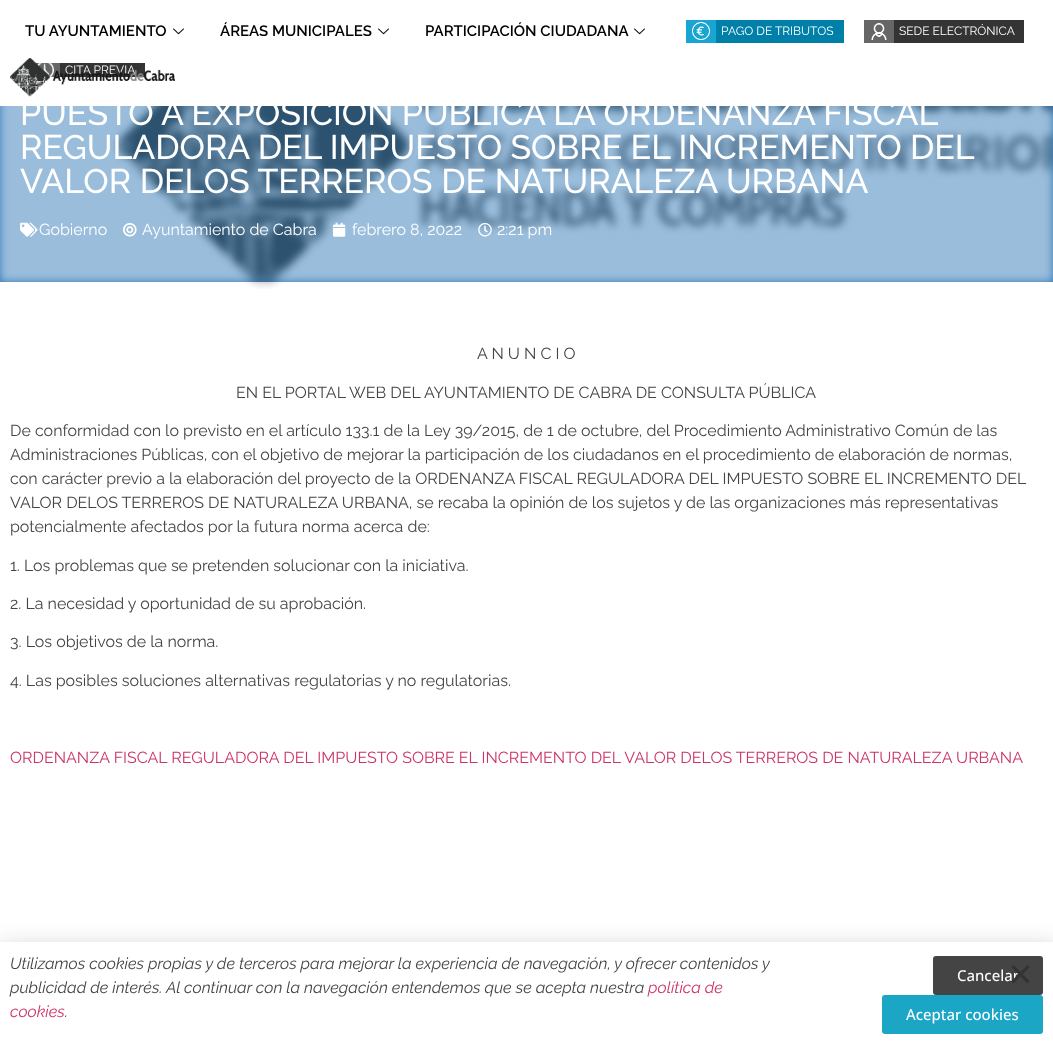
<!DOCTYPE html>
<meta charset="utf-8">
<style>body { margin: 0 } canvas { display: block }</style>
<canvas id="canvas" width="1053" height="1048"></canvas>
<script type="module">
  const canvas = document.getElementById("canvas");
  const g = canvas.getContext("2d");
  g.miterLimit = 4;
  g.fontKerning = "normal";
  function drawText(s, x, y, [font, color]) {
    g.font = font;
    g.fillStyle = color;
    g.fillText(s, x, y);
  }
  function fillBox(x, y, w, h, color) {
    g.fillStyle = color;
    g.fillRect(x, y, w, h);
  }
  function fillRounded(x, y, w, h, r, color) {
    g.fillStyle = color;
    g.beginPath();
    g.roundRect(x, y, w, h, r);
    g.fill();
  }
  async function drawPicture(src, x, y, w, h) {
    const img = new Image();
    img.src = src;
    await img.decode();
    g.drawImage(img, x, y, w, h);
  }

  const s1 = ["600 15px Raleway", "#000000"];
  const s2 = ["12px Raleway", "#FFFFFF"];
  const s3 = ["500 34px Raleway", "#FFFFFF"];
  const s4 = ["16px Raleway", "#FFFFFF"];
  const s5 = ["16px Raleway", "#444444"];
  const s6 = ["16px Raleway", "#CC3366"];
  const s7 = ["italic 16px Raleway", "#444444"];
  const s8 = ["italic 16px Raleway", "#CC3366"];
  const s9 = ["500 15px Open Sans", "#FFFFFF"];

  fillBox(0, 0, 1053, 1048, "#FFFFFF");
  drawText("TU AYUNTAMIENTO", 25, 36, s1);
  await drawPicture("pic1.png", 173, 28, 11, 7);
  drawText("ÁREAS MUNICIPALES", 220, 36, s1);
  await drawPicture("pic1.png", 378, 28, 11, 7);
  drawText("PARTICIPACIÓN CIUDADANA", 425, 36, s1);
  await drawPicture("pic1.png", 634, 28, 11, 7);
  fillBox(716, 20, 128, 23, "#007FA8");
  fillBox(686, 20, 30, 23, "#18A5D2");
  await drawPicture("pic2.png", 692, 22, 18, 18);
  drawText("PAGO DE TRIBUTOS", 721, 35, s2);
  fillBox(894, 20, 130, 23, "#343434");
  fillBox(864, 20, 30, 23, "#666666");
  await drawPicture("pic3.png", 871, 23, 16, 17);
  drawText("SEDE ELECTRÓNICA", 899, 35, s2);
  fillBox(60, 63, 85, 14, "#343434");
  fillBox(30, 63, 30, 14, "#666666");
  await drawPicture("pic4.png", 36, 63, 18, 14);
  drawText("CITA PREVIA", 65, 74, s2);
  fillBox(0, 106, 1053, 176, "#337AB7");
  await drawPicture("pic10.png", 0, 106, 1053, 183);
  g.wordSpacing = "-0.25px";
  drawText("PUESTO A EXPOSICIÓN PÚBLICA LA ORDENANZA FISCAL", 20, 125, s3);
  await drawPicture("pic5.png", 10, 58, 165, 39);
  drawText("REGULADORA DEL IMPUESTO SOBRE EL INCREMENTO DEL", 20, 159, s3);
  g.wordSpacing = "0px";
  drawText("VALOR DELOS TERREROS DE NATURALEZA URBANA", 20, 193, s3);
  await drawPicture("pic6.png", 20, 222, 18, 15);
  drawText("Gobierno", 39, 235, s4);
  await drawPicture("pic7.png", 123, 223, 14, 14);
  drawText("Ayuntamiento de Cabra", 142, 235, s4);
  await drawPicture("pic8.png", 333, 222, 13, 15);
  drawText("febrero 8, 2022", 352, 235, s4);
  await drawPicture("pic9.png", 478, 223, 14, 14);
  drawText("2:21 pm", 497, 235, s4);
  drawText("A N U N C I O", 477, 359, s5);
  drawText("EN EL PORTAL WEB DEL AYUNTAMIENTO DE CABRA DE CONSULTA PÚBLICA", 236, 398, s5);
  drawText("De conformidad con lo previsto en el artículo 133.1 de la Ley 39/2015, de 1 de octubre, del Procedimiento Administrativo Común de las", 10, 436, s5);
  drawText("Administraciones Públicas, con el objetivo de mejorar la participación de los ciudadanos en el procedimiento de elaboración de normas,", 10, 460, s5);
  drawText("con carácter previo a la elaboración del proyecto de la ORDENANZA FISCAL REGULADORA DEL IMPUESTO SOBRE EL INCREMENTO DEL", 10, 484, s5);
  drawText("VALOR DELOS TERREROS DE NATURALEZA URBANA, se recaba la opinión de los sujetos y de las organizaciones más representativas", 10, 508, s5);
  drawText("potencialmente afectados por la futura norma acerca de:", 10, 532, s5);
  drawText("1. Los problemas que se pretenden solucionar con la iniciativa.", 10, 571, s5);
  drawText("2. La necesidad y oportunidad de su aprobación.", 10, 609, s5);
  drawText("3. Los objetivos de la norma.", 10, 647, s5);
  drawText("4. Las posibles soluciones alternativas regulatorias y no regulatorias.", 10, 686, s5);
  drawText("ORDENANZA FISCAL REGULADORA DEL IMPUESTO SOBRE EL INCREMENTO DEL VALOR DELOS TERREROS DE NATURALEZA URBANA", 10, 763, s6);
  g.fillStyle = "rgba(0, 0, 0, 0.2)";
  g.filter = "blur(11.5px)";
  g.beginPath();
  g.rect(-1, 947, 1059, 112);
  g.fill();
  g.filter = "none";
  fillBox(0, 942, 1053, 106, "#FFFFFF");
  drawText("Utilizamos cookies propias y de terceros para mejorar la experiencia de navegación, y ofrecer contenidos y", 10, 969, s7);
  drawText("publicidad de interés. Al continuar con la navegación entendemos que se acepta nuestra", 10, 993, s7);
  drawText("política de", 648, 993, s8);
  drawText("cookies", 10, 1017, s8);
  drawText(".", 65, 1017, s7);
  fillRounded(933, 956, 110, 39, 3, "#444444");
  drawText("Cancelar", 957, 981, s9);
  fillRounded(882, 995, 161, 39, 3, "#1CA6C5");
  drawText("Aceptar cookies", 906, 1020, s9);
  await drawPicture("pic11.png", 1011, 965, 19, 18);
</script>
